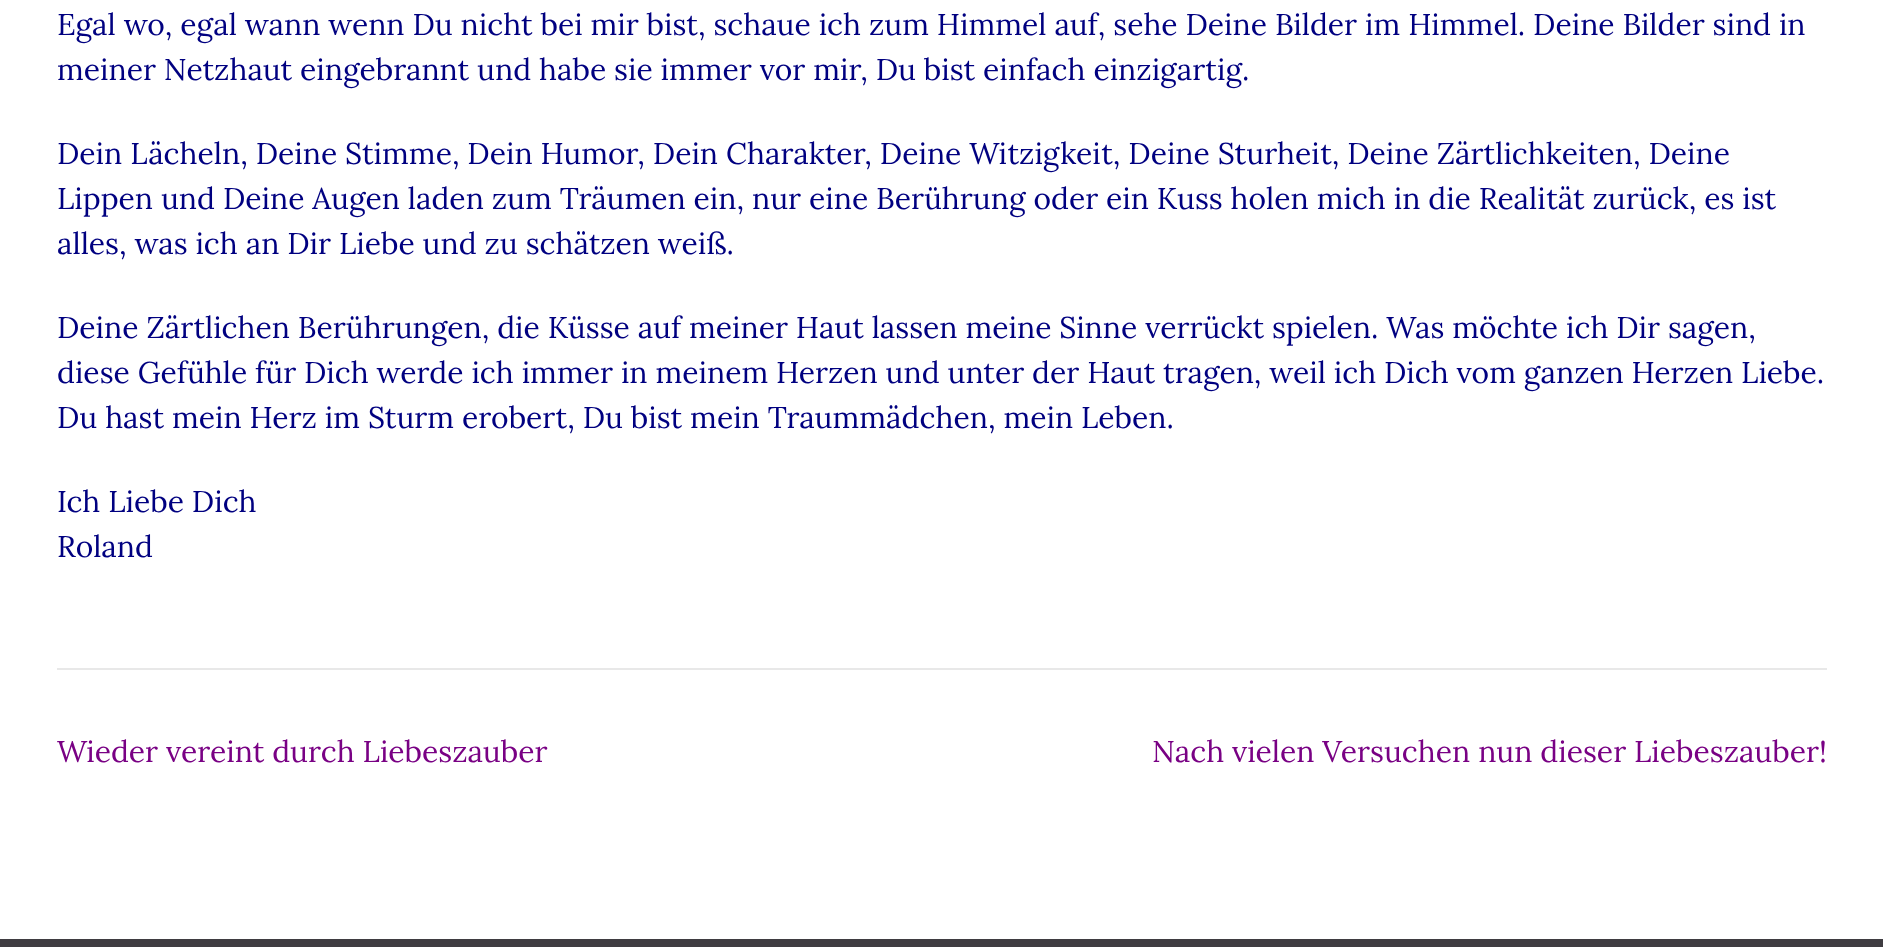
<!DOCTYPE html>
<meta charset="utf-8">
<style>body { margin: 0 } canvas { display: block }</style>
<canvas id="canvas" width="1883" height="947"></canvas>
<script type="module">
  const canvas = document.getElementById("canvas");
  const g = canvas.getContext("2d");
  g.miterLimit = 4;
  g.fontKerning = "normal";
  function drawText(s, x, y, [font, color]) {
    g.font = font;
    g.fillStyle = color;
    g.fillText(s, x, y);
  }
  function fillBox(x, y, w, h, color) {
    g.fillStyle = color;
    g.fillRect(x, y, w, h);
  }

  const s1 = ["30px Lora", "#000080"];
  const s2 = ["30px Lora", "#790184"];

  fillBox(0, 0, 1883, 947, "#FFFFFF");
  fillBox(57, 668, 1770, 2, "#E8E8E8");
  drawText("Egal wo, egal wann wenn Du nicht bei mir bist, schaue ich zum Himmel auf, sehe Deine Bilder im Himmel. Deine Bilder sind in", 57, 35, s1);
  drawText("meiner Netzhaut eingebrannt und habe sie immer vor mir, Du bist einfach einzigartig.", 57, 80, s1);
  drawText("Dein Lächeln, Deine Stimme, Dein Humor, Dein Charakter, Deine Witzigkeit, Deine Sturheit, Deine Zärtlichkeiten, Deine", 57, 164, s1);
  drawText("Lippen und Deine Augen laden zum Träumen ein, nur eine Berührung oder ein Kuss holen mich in die Realität zurück, es ist", 57, 209, s1);
  drawText("alles, was ich an Dir Liebe und zu schätzen weiß.", 57, 254, s1);
  drawText("Deine Zärtlichen Berührungen, die Küsse auf meiner Haut lassen meine Sinne verrückt spielen. Was möchte ich Dir sagen,", 57, 338, s1);
  drawText("diese Gefühle für Dich werde ich immer in meinem Herzen und unter der Haut tragen, weil ich Dich vom ganzen Herzen Liebe.", 57, 383, s1);
  drawText("Du hast mein Herz im Sturm erobert, Du bist mein Traummädchen, mein Leben.", 57, 428, s1);
  drawText("Ich Liebe Dich", 57, 512, s1);
  drawText("Roland", 57, 557, s1);
  drawText("Wieder vereint durch Liebeszauber", 57, 762, s2);
  drawText("Nach vielen Versuchen nun dieser Liebeszauber!", 1152, 762, s2);
  fillBox(0, 939, 1883, 8, "#3F3C41");
</script>
